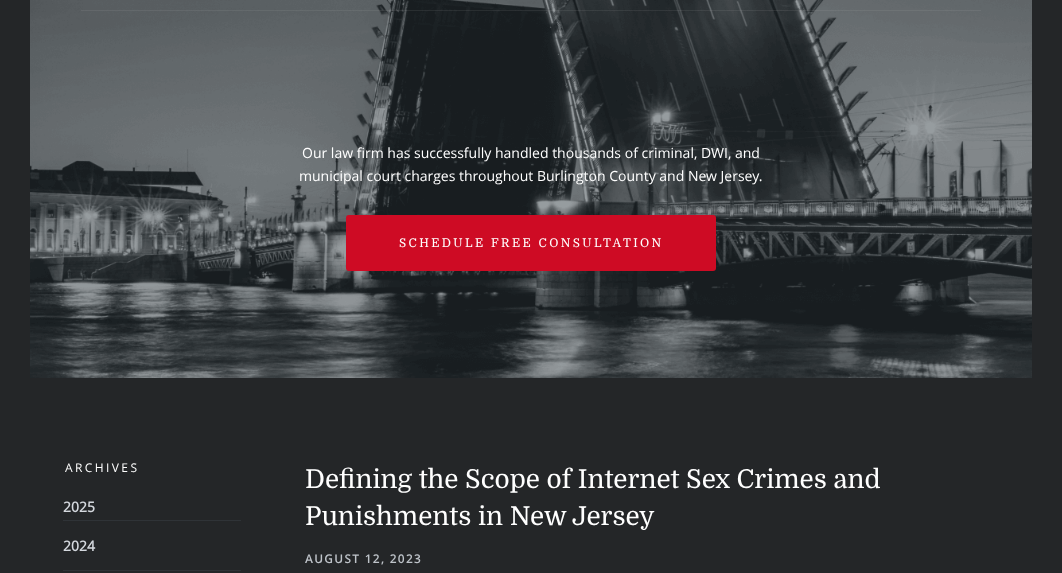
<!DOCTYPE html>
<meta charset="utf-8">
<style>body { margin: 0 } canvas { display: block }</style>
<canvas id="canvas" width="1062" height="573"></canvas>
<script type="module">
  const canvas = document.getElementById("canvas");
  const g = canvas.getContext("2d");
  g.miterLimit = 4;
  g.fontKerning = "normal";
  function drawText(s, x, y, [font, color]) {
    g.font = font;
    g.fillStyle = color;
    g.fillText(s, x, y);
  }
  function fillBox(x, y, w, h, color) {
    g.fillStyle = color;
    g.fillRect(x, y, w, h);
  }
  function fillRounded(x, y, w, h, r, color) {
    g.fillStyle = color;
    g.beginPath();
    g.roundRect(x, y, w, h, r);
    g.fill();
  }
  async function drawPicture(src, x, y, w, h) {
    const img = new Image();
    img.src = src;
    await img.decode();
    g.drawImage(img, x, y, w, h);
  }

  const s1 = ["14px Open Sans", "#FFFFFF"];
  const s2 = ["12px Domine", "#FFFFFF"];
  const s3 = ["12px Open Sans", "#FFFFFF"];
  const s4 = ["bold 14px Open Sans", "#D4D8DE"];
  const s5 = ["26px Domine", "#FFFFFF"];
  const s6 = ["600 12px Open Sans", "#BEC3C9"];

  fillBox(0, 0, 1062, 573, "#242628");
  await drawPicture("pic1.png", 30, 0, 1002, 378);
  fillBox(81, 10, 900, 1, "rgba(196, 196, 196, 0.1)");
  drawText("Our law firm has successfully handled thousands of criminal, DWI, and", 302, 158, s1);
  drawText("municipal court charges throughout Burlington County and New Jersey.", 299, 181, s1);
  fillRounded(346, 215, 370, 56, 3, "#CE0B24");
  g.letterSpacing = "2.4px";
  drawText("SCHEDULE FREE CONSULTATION", 399, 247, s2);
  drawText("ARCHIVES", 65, 472, s3);
  fillBox(63, 520, 178, 1, "#2F3337");
  g.letterSpacing = "0px";
  drawText("2025", 63, 512, s4);
  fillBox(63, 570, 178, 1, "#2F3337");
  drawText("2024", 63, 551, s4);
  drawText("Defining the Scope of Internet Sex Crimes and", 305, 488, s5);
  drawText("Punishments in New Jersey", 305, 525, s5);
  g.letterSpacing = "1.25px";
  drawText("AUGUST 12, 2023", 305, 563, s6);
</script>
